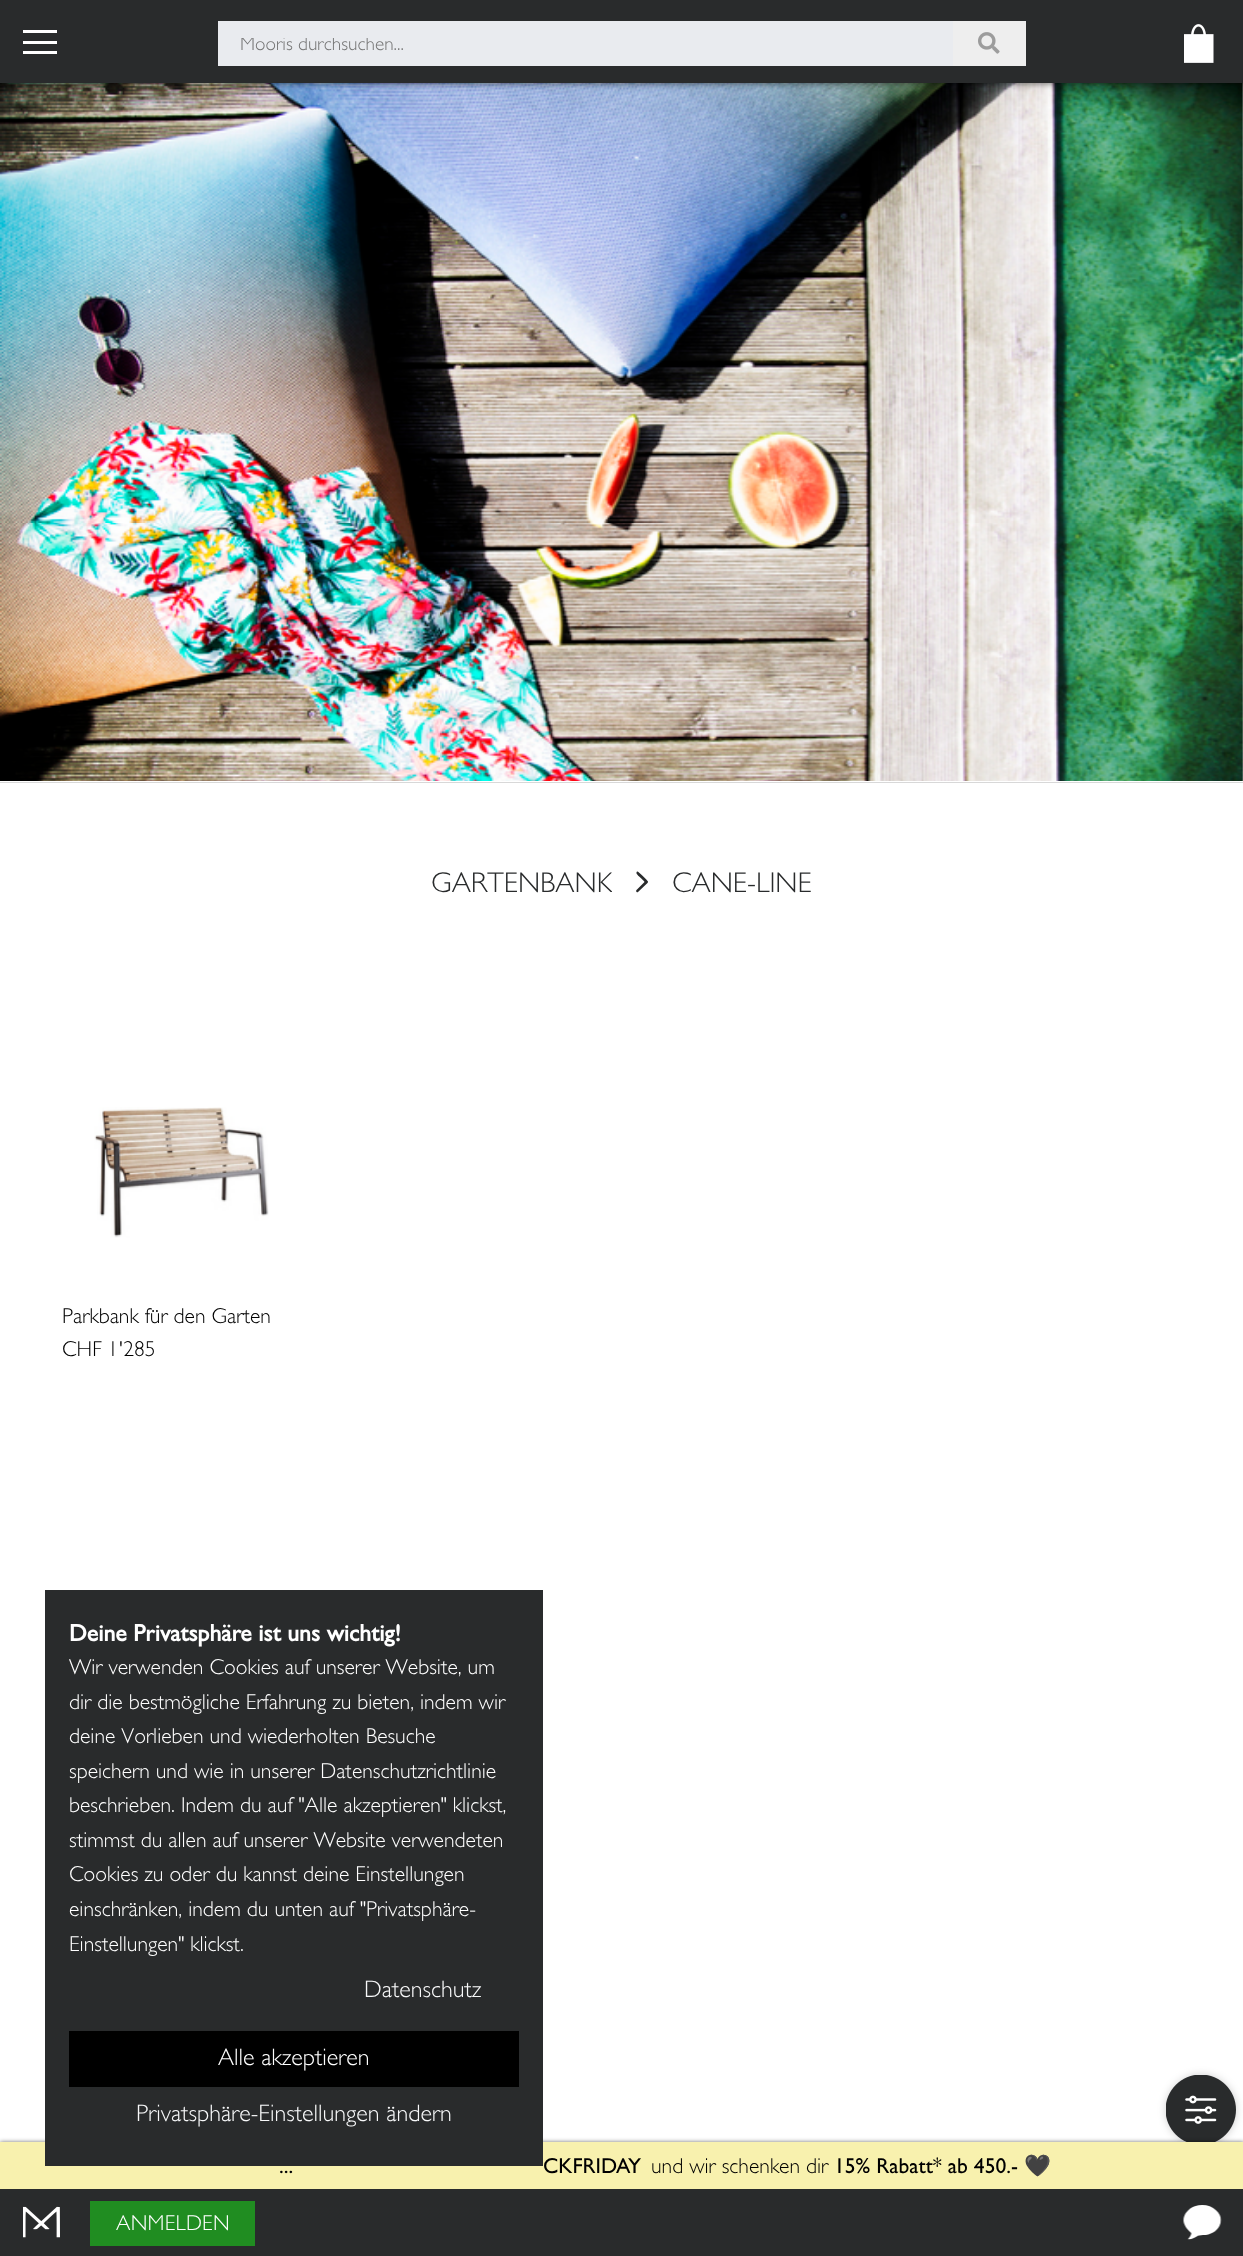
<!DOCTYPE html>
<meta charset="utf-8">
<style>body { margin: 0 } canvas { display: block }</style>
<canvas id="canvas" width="1243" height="2256"></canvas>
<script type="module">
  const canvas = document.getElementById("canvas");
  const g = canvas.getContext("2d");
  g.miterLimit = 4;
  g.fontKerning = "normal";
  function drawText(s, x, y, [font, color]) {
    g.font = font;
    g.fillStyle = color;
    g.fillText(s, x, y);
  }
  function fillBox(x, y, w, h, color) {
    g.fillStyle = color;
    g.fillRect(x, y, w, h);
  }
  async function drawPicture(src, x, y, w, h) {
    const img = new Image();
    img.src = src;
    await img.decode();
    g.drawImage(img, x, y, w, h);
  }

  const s1 = ["300 19.25px Gill Sans", "#757575"];
  const s2 = ["300 28.75px Gill Sans", "#292B2C"];
  const s3 = ["300 21.6px Gill Sans", "#000000"];
  const s4 = ["300 21.6px Gill Sans", "#FFFFFF"];
  const s5 = ["bold 23.75px Gill Sans", "#FFFFFF"];
  const s6 = ["300 24px Gill Sans", "#F8F9FA"];
  const s7 = ["300 24px Gill Sans", "#FFFFFF"];
  const s8 = ["21.6px Gill Sans", "#000000"];
  const s9 = ["21.6px Noto Color Emoji", "#000000"];

  fillBox(0, 0, 1243, 2256, "#FFFFFF");
  await drawPicture("pic3.png", 0, 83, 1243, 698);
  g.fillStyle = "rgba(0, 0, 0, 0.5)";
  g.filter = "blur(3px)";
  g.beginPath();
  g.rect(0, 2, 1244, 82);
  g.fill();
  g.filter = "none";
  fillBox(0, 0, 1243, 83, "#292B2C");
  fillBox(23, 41, 34, 3, "#FFFFFF");
  fillBox(23, 30, 34, 3, "#FFFFFF");
  fillBox(23, 51, 34, 3, "#FFFFFF");
  fillBox(218, 21, 808, 45, "#E9EBEF");
  g.save();
  g.beginPath();
  g.rect(218, 38, 789, 19);
  g.clip();
  drawText("Mooris durchsuchen...", 240, 50, s1);
  g.restore();
  g.fillStyle = "#EEEEEE";
  g.beginPath();
  g.roundRect(953, 21, 73, 45, [0, 3, 3, 0]);
  g.fill();
  await drawPicture("pic1.png", 978, 32, 22, 22);
  await drawPicture("pic2.png", 1184, 24, 30, 39);
  fillBox(0, 782, 1243, 1, "#D8D8D8");
  drawText("GARTENBANK", 431, 892, s2);
  fillBox(612, 872, 2, 20, "#FFFFFF");
  g.fillStyle = "#292B2C";
  g.beginPath();
  g.moveTo(636.5, 872.5);
  g.bezierCurveTo(635, 874, 644, 880, 644.5, 882);
  g.lineTo(644, 882.5);
  g.lineTo(637, 889.5);
  g.bezierCurveTo(635, 891, 637, 893, 638, 892);
  g.lineTo(647.5, 883);
  g.bezierCurveTo(648, 882.5, 648, 882, 648, 881.5);
  g.bezierCurveTo(648, 881, 639, 872, 637.5, 871.5);
  g.bezierCurveTo(637, 871.5, 636.5, 872, 636.5, 872.5);
  g.closePath();
  g.fill("evenodd");
  drawText("CANE-LINE", 672, 892, s2);
  await drawPicture("pic4.png", 94, 1107, 175, 131);
  drawText("Parkbank für den Garten", 62, 1323, s3);
  drawText("CHF 1'285", 62, 1356, s3);
  g.fillStyle = "rgba(0, 0, 0, 0.2)";
  g.filter = "blur(4px)";
  g.beginPath();
  g.roundRect(1166, 2075, 70, 70, 35);
  g.fill();
  g.filter = "none";
  await drawPicture("pic5.png", 1166, 2075, 70, 67);
  g.fillStyle = "rgba(0, 0, 0, 0.55)";
  g.filter = "blur(2px)";
  g.beginPath();
  g.rect(0, 2142, 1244, 47);
  g.fill();
  g.filter = "none";
  fillBox(0, 2189, 1243, 67, "#292B2C");
  await drawPicture("pic6.png", 23, 2206, 37, 32);
  fillBox(90, 2201, 165, 45, "#208D21");
  g.letterSpacing = "0.25px";
  drawText("ANMELDEN", 116, 2230, s4);
  await drawPicture("pic7.png", 1183, 2205, 39, 35);
  fillBox(0, 2142, 1243, 47, "#F8F1AE");
  fillBox(45, 1590, 498, 576, "#292B2C");
  g.letterSpacing = "0px";
  drawText("Deine Privatsphäre ist uns wichtig!", 69, 1641, s5);
  drawText("Wir verwenden Cookies auf unserer Website, um", 69, 1674, s4);
  drawText("dir die bestmögliche Erfahrung zu bieten, indem wir", 69, 1709, s4);
  drawText("deine Vorlieben und wiederholten Besuche", 69, 1743, s4);
  drawText("speichern und wie in unserer Datenschutzrichtlinie", 69, 1778, s4);
  drawText("beschrieben. Indem du auf \"Alle akzeptieren\" klickst,", 69, 1812, s4);
  drawText("stimmst du allen auf unserer Website verwendeten", 69, 1847, s4);
  drawText("Cookies zu oder du kannst deine Einstellungen", 69, 1881, s4);
  drawText("einschränken, indem du unten auf \"Privatsphäre-", 69, 1916, s4);
  drawText("Einstellungen\" klickst.", 69, 1951, s4);
  drawText("Datenschutz", 364, 1997, s6);
  fillBox(69, 2031, 450, 56, "#000000");
  drawText("Alle akzeptieren", 218, 2065, s7);
  drawText("Privatsphäre-Einstellungen ändern", 136, 2121, s6);
  drawText("...", 279, 2173, s8);
  drawText("CKFRIDAY", 543, 2173, s8);
  drawText("und wir schenken dir", 651, 2173, s3);
  drawText("15% Rabatt* ab 450.-", 834, 2173, s8);
  drawText("🖤", 1024, 2173, s9);
</script>
